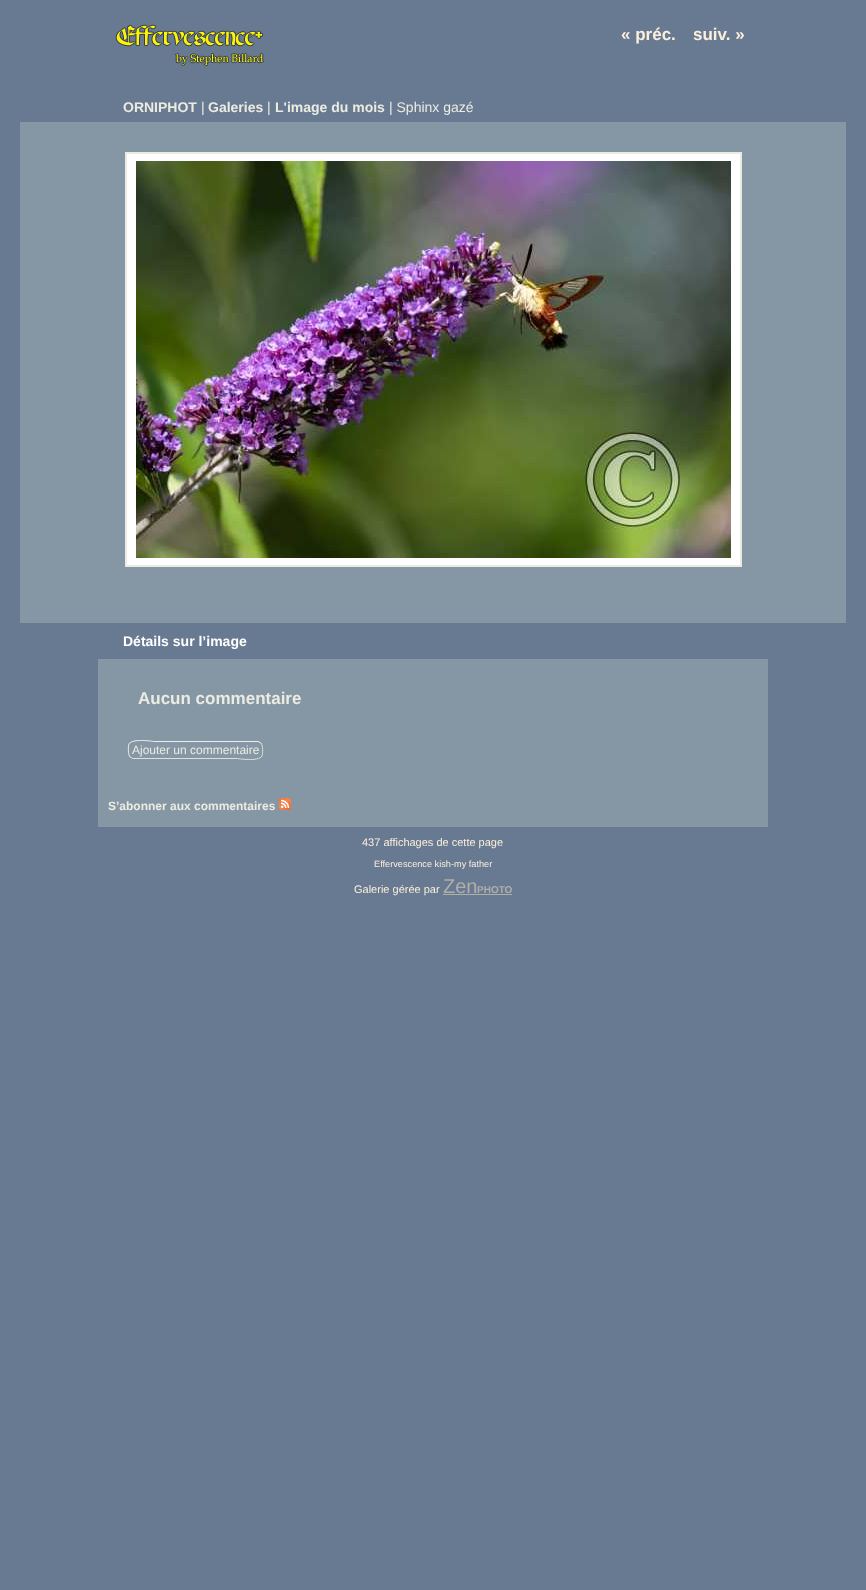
<!DOCTYPE html>
<meta charset="utf-8">
<style>body { margin: 0 } canvas { display: block }</style>
<canvas id="canvas" width="866" height="1590"></canvas>
<script type="module">
  const canvas = document.getElementById("canvas");
  const g = canvas.getContext("2d");
  g.miterLimit = 4;
  g.fontKerning = "normal";
  function drawText(s, x, y, [font, color]) {
    g.font = font;
    g.fillStyle = color;
    g.fillText(s, x, y);
  }
  function fillBox(x, y, w, h, color) {
    g.fillStyle = color;
    g.fillRect(x, y, w, h);
  }
  async function drawPicture(src, x, y, w, h) {
    const img = new Image();
    img.src = src;
    await img.decode();
    g.drawImage(img, x, y, w, h);
  }

  const s1 = ["bold 17px Liberation Sans", "#FBEFDB"];
  const s2 = ["bold 14px Liberation Sans", "#ECEBE1"];
  const s3 = ["14px Liberation Sans", "#ECEBE1"];
  const s4 = ["bold 14px Liberation Sans", "#FFFFFF"];
  const s5 = ["bold 17px Liberation Sans", "#ECEBE1"];
  const s6 = ["12px Liberation Sans", "#ECEBE1"];
  const s7 = ["bold 12px Liberation Sans", "#ECEBE1"];
  const s8 = ["11px Liberation Sans", "#FBEFDB"];
  const s9 = ["9.2px Liberation Sans", "#FBEFDB"];
  const s10 = ["20px Liberation Sans", "#B1AEA7"];
  const s11 = ["bold 10px Liberation Sans", "#B1AEA7"];

  fillBox(0, 0, 866, 1590, "#687A92");
  fillBox(20, 122, 826, 501, "#8597A5");
  await drawPicture("pic1.png", 115, 24, 150, 42);
  drawText("« préc.", 621, 40, s1);
  drawText("suiv. »", 693, 40, s1);
  drawText("ORNIPHOT", 123, 112, s2);
  drawText("|", 201, 112, s3);
  drawText("Galeries", 208, 112, s2);
  drawText("|", 267, 112, s3);
  drawText("L'image du mois", 275, 112, s2);
  drawText("| Sphinx gazé", 389, 112, s3);
  g.fillStyle = "#FFFFFF";
  g.beginPath();
  g.rect(126, 153, 615, 413);
  g.fill();
  g.strokeStyle = "#ECEBE1";
  g.lineWidth = 2;
  g.stroke();
  await drawPicture("pic2.png", 136, 161, 595, 397);
  drawText("Détails sur l’image", 123, 646, s4);
  fillBox(98, 659, 670, 168, "#8597A5");
  drawText("Aucun commentaire", 138, 704, s5);
  g.beginPath();
  g.moveTo(261, 743);
  g.bezierCurveTo(263, 745, 263, 754, 262, 756);
  g.bezierCurveTo(259, 762, 237, 758.5, 237, 758.5);
  g.lineTo(133, 758.5);
  g.lineTo(130, 757);
  g.strokeStyle = "#DEDEDE";
  g.lineWidth = 1;
  g.stroke();
  g.beginPath();
  g.moveTo(130, 757);
  g.bezierCurveTo(128, 755, 128, 746, 129, 744);
  g.bezierCurveTo(132, 738, 154, 741.5, 154, 741.5);
  g.lineTo(258, 741.5);
  g.lineTo(261, 743);
  g.strokeStyle = "#EEEEEE";
  g.stroke();
  drawText("Ajouter un commentaire", 132, 754, s6);
  drawText("S’abonner aux commentaires", 108, 810, s7);
  await drawPicture("pic3.png", 279, 798, 12, 12);
  drawText("437 affichages de cette page", 362, 846, s8);
  drawText("Effervescence kish-my father", 374, 867, s9);
  drawText("Galerie gérée par", 354, 893, s8);
  drawText("Zen", 443, 893, s10);
  drawText("PHOTO", 477, 893, s11);
  fillBox(443, 894, 69, 1, "#B1AEA7");
</script>
